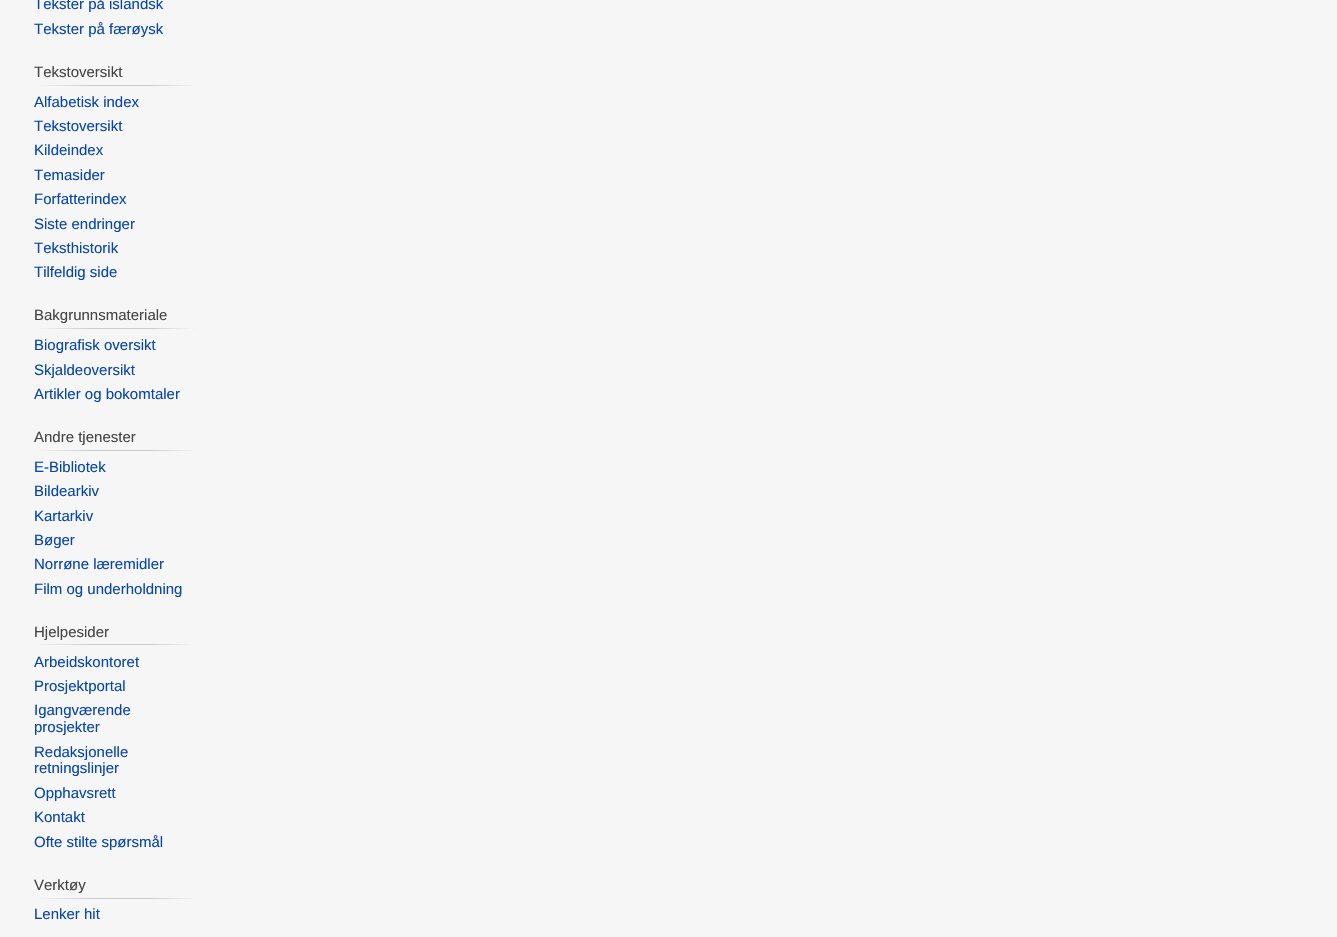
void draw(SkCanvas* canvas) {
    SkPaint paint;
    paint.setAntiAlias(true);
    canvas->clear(0xFFF6F6F6);
    SkFont font1(fontMgr->matchFamilyStyle("Liberation Sans", SkFontStyle::Normal()), 15);
    font1.setSubpixel(true);
    paint.setColor(0xFF0645AD);
    canvas->drawString("Tekster på islandsk", 34, 9, font1, paint);
    canvas->drawString("Tekster på færøysk", 34, 34, font1, paint);
    paint.setColor(0xFF444444);
    canvas->drawString("Tekstoversikt", 34, 77, font1, paint);
    {
        const SkColor colors[] = {0xFFF6F6F6, 0xFFC8CCD1, 0xFFC8CCD1, 0xFFF6F6F6};
        const float stops[] = {0, 0.35f, 0.7f, 1};
        const SkPoint ends[] = {{34, 86}, {198, 86}};
        paint.setShader(SkGradientShader::MakeLinear(ends, colors, stops, 4, SkTileMode::kClamp));
        paint.setAlpha(255);
    }
    canvas->drawRect(SkRect::MakeXYWH(34, 85, 164, 1), paint);
    paint.setShader(nullptr);
    paint.setColor(0xFF0645AD);
    canvas->drawString("Alfabetisk index", 34, 107, font1, paint);
    canvas->drawString("Tekstoversikt", 34, 131, font1, paint);
    canvas->drawString("Kildeindex", 34, 155, font1, paint);
    canvas->drawString("Temasider", 34, 180, font1, paint);
    canvas->drawString("Forfatterindex", 34, 204, font1, paint);
    canvas->drawString("Siste endringer", 34, 229, font1, paint);
    canvas->drawString("Teksthistorik", 34, 253, font1, paint);
    canvas->drawString("Tilfeldig side", 34, 277, font1, paint);
    paint.setColor(0xFF444444);
    canvas->drawString("Bakgrunnsmateriale", 34, 320, font1, paint);
    {
        const SkColor colors[] = {0xFFF6F6F6, 0xFFC8CCD1, 0xFFC8CCD1, 0xFFF6F6F6};
        const float stops[] = {0, 0.35f, 0.7f, 1};
        const SkPoint ends[] = {{34, 328}, {198, 328}};
        paint.setShader(SkGradientShader::MakeLinear(ends, colors, stops, 4, SkTileMode::kClamp));
        paint.setAlpha(255);
    }
    canvas->drawRect(SkRect::MakeXYWH(34, 328, 164, 1), paint);
    paint.setShader(nullptr);
    paint.setColor(0xFF0645AD);
    canvas->drawString("Biografisk oversikt", 34, 350, font1, paint);
    canvas->drawString("Skjaldeoversikt", 34, 375, font1, paint);
    canvas->drawString("Artikler og bokomtaler", 34, 399, font1, paint);
    paint.setColor(0xFF444444);
    canvas->drawString("Andre tjenester", 34, 442, font1, paint);
    {
        const SkColor colors[] = {0xFFF6F6F6, 0xFFC8CCD1, 0xFFC8CCD1, 0xFFF6F6F6};
        const float stops[] = {0, 0.35f, 0.7f, 1};
        const SkPoint ends[] = {{34, 451}, {198, 451}};
        paint.setShader(SkGradientShader::MakeLinear(ends, colors, stops, 4, SkTileMode::kClamp));
        paint.setAlpha(255);
    }
    canvas->drawRect(SkRect::MakeXYWH(34, 450, 164, 1), paint);
    paint.setShader(nullptr);
    paint.setColor(0xFF0645AD);
    canvas->drawString("E-Bibliotek", 34, 472, font1, paint);
    canvas->drawString("Bildearkiv", 34, 496, font1, paint);
    canvas->drawString("Kartarkiv", 34, 521, font1, paint);
    canvas->drawString("Bøger", 34, 545, font1, paint);
    canvas->drawString("Norrøne læremidler", 34, 569, font1, paint);
    canvas->drawString("Film og underholdning", 34, 594, font1, paint);
    paint.setColor(0xFF444444);
    canvas->drawString("Hjelpesider", 34, 637, font1, paint);
    {
        const SkColor colors[] = {0xFFF6F6F6, 0xFFC8CCD1, 0xFFC8CCD1, 0xFFF6F6F6};
        const float stops[] = {0, 0.35f, 0.7f, 1};
        const SkPoint ends[] = {{34, 644}, {198, 644}};
        paint.setShader(SkGradientShader::MakeLinear(ends, colors, stops, 4, SkTileMode::kClamp));
        paint.setAlpha(255);
    }
    canvas->drawRect(SkRect::MakeXYWH(34, 644, 164, 1), paint);
    paint.setShader(nullptr);
    paint.setColor(0xFF0645AD);
    canvas->drawString("Arbeidskontoret", 34, 667, font1, paint);
    canvas->drawString("Prosjektportal", 34, 691, font1, paint);
    canvas->drawString("Igangværende", 34, 715, font1, paint);
    canvas->drawString("prosjekter", 34, 732, font1, paint);
    canvas->drawString("Redaksjonelle", 34, 757, font1, paint);
    canvas->drawString("retningslinjer", 34, 773, font1, paint);
    canvas->drawString("Opphavsrett", 34, 798, font1, paint);
    canvas->drawString("Kontakt", 34, 822, font1, paint);
    canvas->drawString("Ofte stilte spørsmål", 34, 847, font1, paint);
    paint.setColor(0xFF444444);
    canvas->drawString("Verktøy", 34, 890, font1, paint);
    {
        const SkColor colors[] = {0xFFF6F6F6, 0xFFC8CCD1, 0xFFC8CCD1, 0xFFF6F6F6};
        const float stops[] = {0, 0.35f, 0.7f, 1};
        const SkPoint ends[] = {{34, 898}, {198, 898}};
        paint.setShader(SkGradientShader::MakeLinear(ends, colors, stops, 4, SkTileMode::kClamp));
        paint.setAlpha(255);
    }
    canvas->drawRect(SkRect::MakeXYWH(34, 898, 164, 1), paint);
    paint.setShader(nullptr);
    paint.setColor(0xFF0645AD);
    canvas->drawString("Lenker hit", 34, 919, font1, paint);
}
